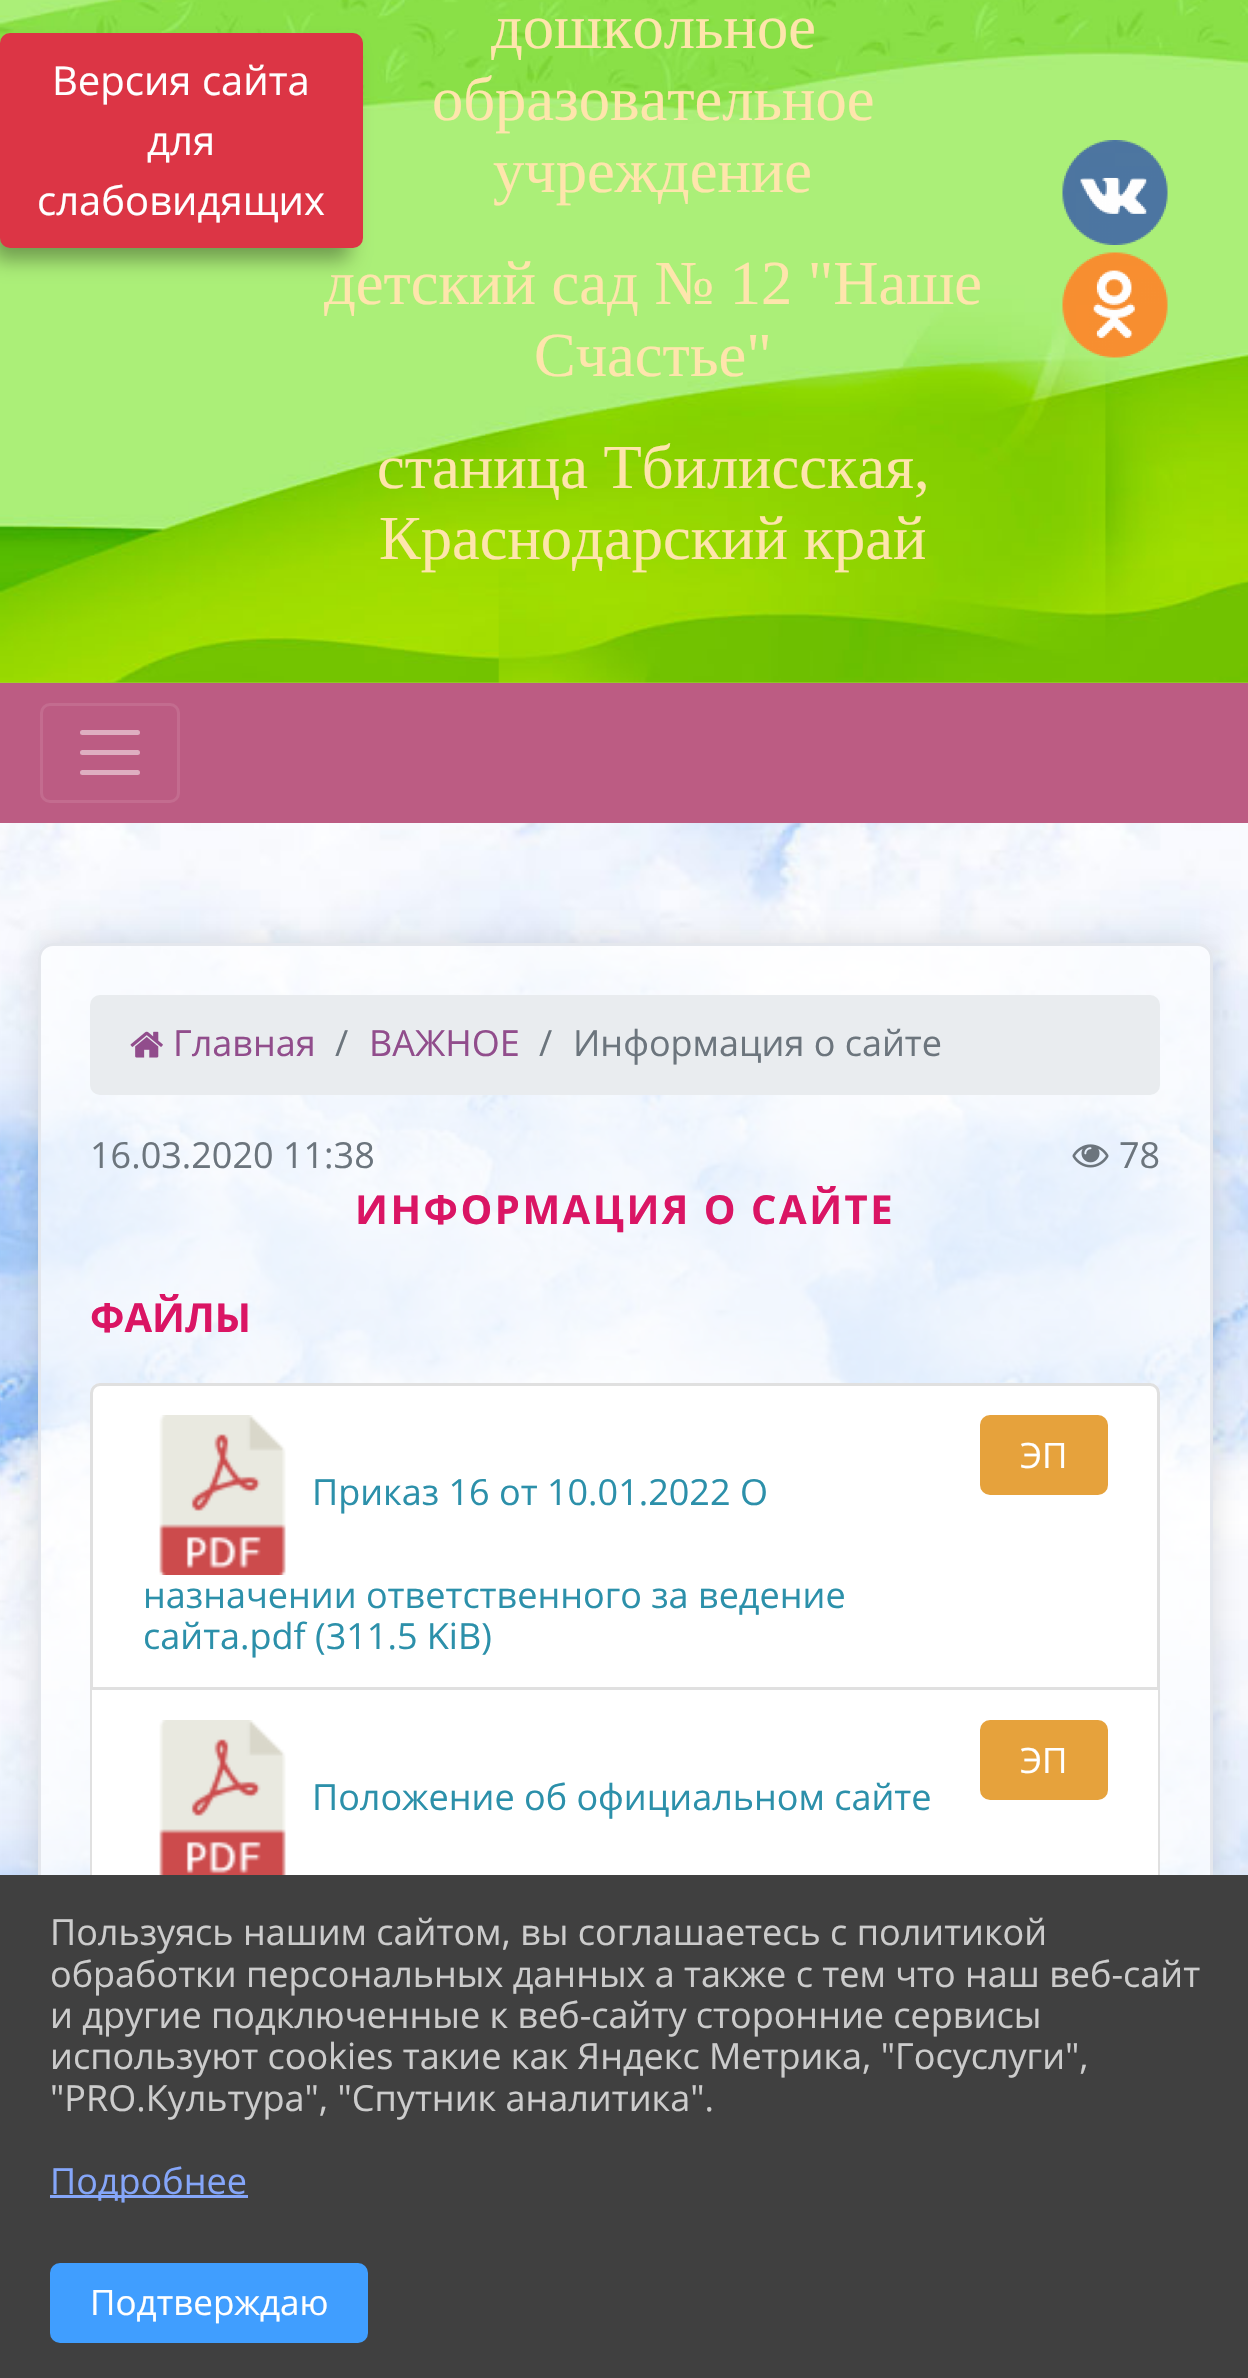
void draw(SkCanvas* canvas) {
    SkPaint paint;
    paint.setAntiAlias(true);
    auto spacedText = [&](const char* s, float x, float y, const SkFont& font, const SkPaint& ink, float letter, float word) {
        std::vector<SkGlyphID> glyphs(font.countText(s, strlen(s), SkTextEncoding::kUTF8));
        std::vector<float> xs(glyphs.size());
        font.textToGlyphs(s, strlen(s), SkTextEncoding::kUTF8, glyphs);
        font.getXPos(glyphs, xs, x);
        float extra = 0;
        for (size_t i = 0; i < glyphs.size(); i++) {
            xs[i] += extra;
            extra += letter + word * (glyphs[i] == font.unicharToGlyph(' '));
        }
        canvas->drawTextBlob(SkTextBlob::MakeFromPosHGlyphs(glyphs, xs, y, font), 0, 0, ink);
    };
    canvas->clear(0xFFFFFFFF);
    canvas->drawImageRect(SkImages::DeferredFromEncodedData(SkData::MakeFromFileName("img1.png")), SkRect::MakeXYWH(0, 823, 1248, 1052), SkSamplingOptions());
    paint.setColor(0xFFA7CB45);
    canvas->drawRect(SkRect::MakeXYWH(0, 682, 1248, 1), paint);
    canvas->drawImageRect(SkImages::DeferredFromEncodedData(SkData::MakeFromFileName("img2.png")), SkRect::MakeXYWH(0, 0, 1248, 683), SkSamplingOptions());
    SkFont font1(fontMgr->matchFamilyStyle("Liberation Serif", SkFontStyle::Normal()), 62.5f);
    font1.setSubpixel(true);
    paint.setColor(0xFFFEE5AC);
    canvas->drawString("дошкольное", 491, 48, font1, paint);
    canvas->drawString("образовательное", 432, 120, font1, paint);
    canvas->drawString("учреждение", 493, 192, font1, paint);
    canvas->drawString("детский сад № 12 \"Наше", 324, 304, font1, paint);
    canvas->drawString("Счастье\"", 534, 376, font1, paint);
    canvas->drawString("станица Тбилисская,", 377, 488, font1, paint);
    canvas->drawString("Краснодарский край", 379, 559, font1, paint);
    canvas->drawImageRect(SkImages::DeferredFromEncodedData(SkData::MakeFromFileName("img3.png")), SkRect::MakeXYWH(1062, 140, 106, 105), SkSamplingOptions());
    canvas->drawImageRect(SkImages::DeferredFromEncodedData(SkData::MakeFromFileName("img4.png")), SkRect::MakeXYWH(1062, 252, 106, 106), SkSamplingOptions());
    paint.setColor(0xFFBC5C83);
    canvas->drawRect(SkRect::MakeXYWH(0, 683, 1248, 140), paint);
    paint.setStyle(SkPaint::kStroke_Style);
    paint.setStrokeWidth(3);
    paint.setColor(0xFFC36C8F);
    canvas->drawRoundRect(SkRect::MakeXYWH(41.5f, 704.5f, 137, 97), 8.5f, 8.5f, paint);
    paint.setStrokeWidth(5);
    paint.setStrokeCap(SkPaint::kRound_Cap);
    paint.setColor(0xFFDEAEC1);
    canvas->drawPath(SkPathBuilder().moveTo(82.5f, 732.5f).lineTo(137.5f, 732.5f).moveTo(82.5f, 752.5f).lineTo(137.5f, 752.5f).moveTo(82.5f, 772.5f).lineTo(137.5f, 772.5f).detach(), paint);
    canvas->save();
    canvas->clipPath(SkPathBuilder(SkPathFillType::kEvenOdd).moveTo(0, 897).lineTo(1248, 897).lineTo(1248, 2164).lineTo(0, 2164).close().moveTo(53, 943).lineTo(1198, 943).cubicTo(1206.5f, 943, 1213, 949.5f, 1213, 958).lineTo(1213, 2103).cubicTo(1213, 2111.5f, 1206.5f, 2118, 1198, 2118).lineTo(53, 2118).cubicTo(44.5f, 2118, 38, 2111.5f, 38, 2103).lineTo(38, 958).cubicTo(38, 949.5f, 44.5f, 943, 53, 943).close().detach(), true);
    paint.setStyle(SkPaint::kFill_Style);
    paint.setColor(0x1F000000);
    paint.setMaskFilter(SkMaskFilter::MakeBlur(kNormal_SkBlurStyle, 15));
    canvas->drawRoundRect(SkRect::MakeXYWH(38, 943, 1175, 1175), 15, 15, paint);
    paint.setMaskFilter(nullptr);
    canvas->restore();
    paint.setColor(0xB5FFFFFF);
    canvas->drawRoundRect(SkRect::MakeXYWH(39.5f, 944.5f, 1172, 1172), 13.5f, 13.5f, paint);
    paint.setStyle(SkPaint::kStroke_Style);
    paint.setStrokeWidth(3);
    paint.setStrokeCap(SkPaint::kButt_Cap);
    paint.setColor(0xFFE4E7ED);
    canvas->drawRoundRect(SkRect::MakeXYWH(39.5f, 944.5f, 1172, 1172), 13.5f, 13.5f, paint);
    paint.setStyle(SkPaint::kFill_Style);
    paint.setColor(0xFFE9ECEF);
    canvas->drawRoundRect(SkRect::MakeXYWH(90, 995, 1070, 100), 10, 10, paint);
    canvas->drawImageRect(SkImages::DeferredFromEncodedData(SkData::MakeFromFileName("img5.png")), SkRect::MakeXYWH(130, 1031, 33, 27), SkSamplingOptions());
    SkFont font2(fontMgr->matchFamilyStyle("Open Sans", SkFontStyle::Normal()), 36);
    font2.setSubpixel(true);
    paint.setColor(0xFF914D8C);
    canvas->drawString("Главная", 173, 1056, font2, paint);
    paint.setColor(0xFF6C757D);
    canvas->drawString("/", 335, 1056, font2, paint);
    paint.setColor(0xFF914D8C);
    canvas->drawString("ВАЖНОЕ", 369, 1056, font2, paint);
    paint.setColor(0xFF6C757D);
    canvas->drawString("/", 539, 1056, font2, paint);
    canvas->drawString("Информация о сайте", 573, 1056, font2, paint);
    canvas->drawString("16.03.2020 11:38", 90, 1168, font2, paint);
    canvas->drawImageRect(SkImages::DeferredFromEncodedData(SkData::MakeFromFileName("img6.png")), SkRect::MakeXYWH(1072, 1144, 37, 24), SkSamplingOptions());
    canvas->drawString("78", 1119, 1168, font2, paint);
    SkFont font3(fontMgr->matchFamilyStyle("Open Sans", SkFontStyle::Bold()), 40);
    font3.setSubpixel(true);
    paint.setColor(0xFFDA1564);
    spacedText("ИНФОРМАЦИЯ О САЙТЕ", 355, 1224, font3, paint, 2.5f, 0);
    canvas->drawString("ФАЙЛЫ", 90, 1332, font3, paint);
    paint.setColor(0xFFFFFFFF);
    canvas->drawPath(SkPathBuilder().moveTo(100, 1383).lineTo(1150, 1383).cubicTo(1155.5f, 1383, 1160, 1387.5f, 1160, 1393).lineTo(1160, 1690).lineTo(90, 1690).lineTo(90, 1393).cubicTo(90, 1387.5f, 94.5f, 1383, 100, 1383).close().detach(), paint);
    paint.setStyle(SkPaint::kStroke_Style);
    paint.setColor(0x1F000000);
    canvas->drawPath(SkPathBuilder().moveTo(100, 1384.5f).lineTo(1150, 1384.5f).cubicTo(1154.5f, 1384.5f, 1158.5f, 1388.5f, 1158.5f, 1393).lineTo(1158.5f, 1688.5f).lineTo(91.5f, 1688.5f).lineTo(91.5f, 1393).cubicTo(91.5f, 1388.5f, 95.5f, 1384.5f, 100, 1384.5f).close().detach(), paint);
    paint.setStyle(SkPaint::kFill_Style);
    paint.setColor(0xFFE6A23C);
    canvas->drawRoundRect(SkRect::MakeXYWH(981.5f, 1416.5f, 125, 77), 8.5f, 8.5f, paint);
    paint.setStyle(SkPaint::kStroke_Style);
    canvas->drawRoundRect(SkRect::MakeXYWH(981.5f, 1416.5f, 125, 77), 8.5f, 8.5f, paint);
    SkFont font4(fontMgr->matchFamilyStyle("Open Sans", SkFontStyle::Normal()), 35);
    font4.setSubpixel(true);
    paint.setStyle(SkPaint::kFill_Style);
    paint.setColor(0xFFFFFFFF);
    canvas->drawString("ЭП", 1020, 1468, font4, paint);
    canvas->drawImageRect(SkImages::DeferredFromEncodedData(SkData::MakeFromFileName("img7.png")), SkRect::MakeXYWH(159, 1415, 127, 160), SkSamplingOptions());
    paint.setColor(0xFF2C90AA);
    canvas->drawString("Приказ 16 от 10.01.2022 О", 312, 1505, font2, paint);
    canvas->drawString("назначении ответственного за ведение", 143, 1608, font2, paint);
    canvas->drawString("сайта.pdf (311.5 KiB)", 143, 1649, font2, paint);
    paint.setColor(0xFFFFFFFF);
    canvas->drawRect(SkRect::MakeXYWH(90, 1690, 1070, 185), paint);
    paint.setColor(0x1F000000);
    canvas->drawPath(SkPathBuilder(SkPathFillType::kEvenOdd).moveTo(90, 1690).lineTo(1160, 1690).lineTo(1160, 1945).cubicTo(1160, 1951, 1156, 1955, 1150, 1955).lineTo(100, 1955).cubicTo(94, 1955, 90, 1951, 90, 1945).close().moveTo(92, 1690).lineTo(1158, 1690).lineTo(1158, 1945).cubicTo(1158, 1949, 1154, 1952, 1150, 1952).lineTo(100, 1952).cubicTo(96, 1952, 92, 1949, 92, 1945).close().detach(), paint);
    paint.setColor(0xFFE6A23C);
    canvas->drawRoundRect(SkRect::MakeXYWH(981.5f, 1721.5f, 125, 77), 8.5f, 8.5f, paint);
    paint.setStyle(SkPaint::kStroke_Style);
    canvas->drawRoundRect(SkRect::MakeXYWH(981.5f, 1721.5f, 125, 77), 8.5f, 8.5f, paint);
    paint.setStyle(SkPaint::kFill_Style);
    paint.setColor(0xFFFFFFFF);
    canvas->drawString("ЭП", 1020, 1773, font4, paint);
    canvas->drawImageRect(SkImages::DeferredFromEncodedData(SkData::MakeFromFileName("img8.png")), SkRect::MakeXYWH(159, 1720, 127, 155), SkSamplingOptions());
    paint.setColor(0xFF2C90AA);
    canvas->drawString("Положение об официальном сайте", 312, 1810, font2, paint);
    paint.setColor(0x59000000);
    paint.setMaskFilter(SkMaskFilter::MakeBlur(kNormal_SkBlurStyle, 10));
    canvas->drawRoundRect(SkRect::MakeXYWH(-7, 50, 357, 210), 8, 8, paint);
    paint.setMaskFilter(nullptr);
    paint.setColor(0xFFDC3545);
    canvas->drawRoundRect(SkRect::MakeXYWH(1.5f, 34.5f, 360, 212), 8.5f, 8.5f, paint);
    paint.setStyle(SkPaint::kStroke_Style);
    canvas->drawRoundRect(SkRect::MakeXYWH(1.5f, 34.5f, 360, 212), 8.5f, 8.5f, paint);
    SkFont font5(fontMgr->matchFamilyStyle("Open Sans", SkFontStyle::Normal()), 40);
    font5.setSubpixel(true);
    paint.setStyle(SkPaint::kFill_Style);
    paint.setColor(0xFFFFFFFF);
    canvas->drawString("Версия сайта", 52, 95, font5, paint);
    canvas->drawString("для", 147, 155, font5, paint);
    canvas->drawString("слабовидящих", 37, 215, font5, paint);
    paint.setColor(0xFF404040);
    canvas->drawRect(SkRect::MakeXYWH(0, 1875, 1248, 503), paint);
    paint.setColor(0xFFCCCCCC);
    canvas->drawString("Пользуясь нашим сайтом, вы соглашаетесь с политикой", 50, 1945, font2, paint);
    canvas->drawString("обработки персональных данных а также с тем что наш веб-сайт", 50, 1987, font2, paint);
    canvas->drawString("и другие подключенные к веб-сайту сторонние сервисы", 50, 2028, font2, paint);
    canvas->drawString("используют cookies такие как Яндекс Метрика, \"Госуслуги\",", 50, 2069, font2, paint);
    canvas->drawString("\"PRO.Культура\", \"Спутник аналитика\".", 50, 2111, font2, paint);
    paint.setColor(0xFF85A6F9);
    canvas->drawRect(SkRect::MakeXYWH(50, 2195, 198, 3), paint);
    canvas->drawString("Подробнее", 50, 2194, font2, paint);
    paint.setColor(0xFF409EFF);
    canvas->drawRoundRect(SkRect::MakeXYWH(51.5f, 2264.5f, 315, 77), 8.5f, 8.5f, paint);
    paint.setStyle(SkPaint::kStroke_Style);
    canvas->drawRoundRect(SkRect::MakeXYWH(51.5f, 2264.5f, 315, 77), 8.5f, 8.5f, paint);
    paint.setStyle(SkPaint::kFill_Style);
    paint.setColor(0xFFFFFFFF);
    canvas->drawString("Подтверждаю", 90, 2315, font4, paint);
}
